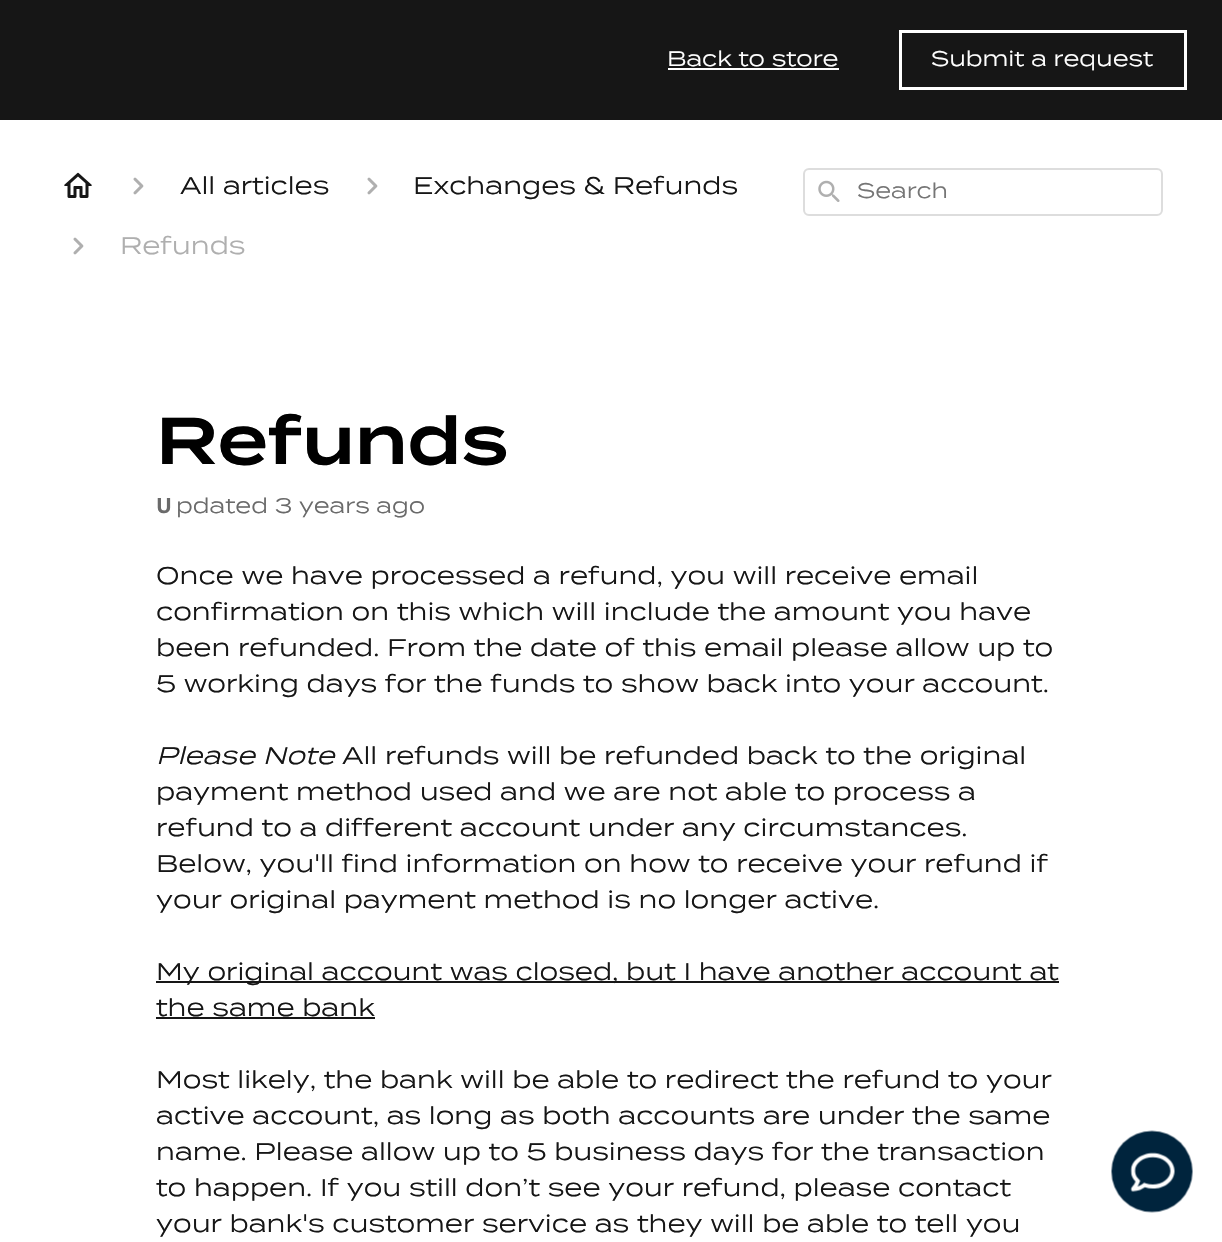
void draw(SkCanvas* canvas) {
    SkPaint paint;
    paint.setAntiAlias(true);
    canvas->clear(0xFFFFFFFF);
    paint.setColor(0xFF161616);
    canvas->drawRect(SkRect::MakeXYWH(0, 0, 1222, 120), paint);
    SkFont font1(fontMgr->matchFamilyStyle("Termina", SkFontStyle::Normal()), 21);
    font1.setSubpixel(true);
    paint.setColor(0xFFFFFFFF);
    canvas->drawString("Back to store", 667, 66, font1, paint);
    canvas->drawRect(SkRect::MakeXYWH(668, 68, 171, 2), paint);
    paint.setStyle(SkPaint::kStroke_Style);
    paint.setStrokeWidth(3);
    canvas->drawRect(SkRect::MakeXYWH(900.5f, 31.5f, 285, 57), paint);
    paint.setStyle(SkPaint::kFill_Style);
    canvas->drawString("Submit a request", 931, 66, font1, paint);
    canvas->drawImageRect(SkImages::DeferredFromEncodedData(SkData::MakeFromFileName("img1.png")), SkRect::MakeXYWH(64, 172, 28, 26), SkSamplingOptions());
    canvas->drawImageRect(SkImages::DeferredFromEncodedData(SkData::MakeFromFileName("img2.png")), SkRect::MakeXYWH(133, 177, 11, 18), SkSamplingOptions());
    SkFont font2(fontMgr->matchFamilyStyle("Termina", SkFontStyle::Normal()), 24);
    font2.setSubpixel(true);
    paint.setColor(0xFF161616);
    canvas->drawString("All articles", 180, 194, font2, paint);
    canvas->drawImageRect(SkImages::DeferredFromEncodedData(SkData::MakeFromFileName("img2.png")), SkRect::MakeXYWH(367, 177, 11, 18), SkSamplingOptions());
    canvas->drawString("Exchanges & Refunds", 413, 194, font2, paint);
    canvas->drawImageRect(SkImages::DeferredFromEncodedData(SkData::MakeFromFileName("img2.png")), SkRect::MakeXYWH(73, 237, 11, 18), SkSamplingOptions());
    paint.setColor(0xFFAFAFAF);
    canvas->drawString("Refunds", 120, 254, font2, paint);
    paint.setStyle(SkPaint::kStroke_Style);
    paint.setStrokeWidth(2);
    paint.setColor(0xFFDDDDDD);
    canvas->drawRoundRect(SkRect::MakeXYWH(804, 169, 358, 46), 5, 5, paint);
    canvas->drawImageRect(SkImages::DeferredFromEncodedData(SkData::MakeFromFileName("img3.png")), SkRect::MakeXYWH(818, 180, 22, 22), SkSamplingOptions());
    paint.setStyle(SkPaint::kFill_Style);
    paint.setColor(0xFF757575);
    canvas->drawString("Search", 857, 198, font1, paint);
    SkFont font3(fontMgr->matchFamilyStyle("Termina", SkFontStyle(600, SkFontStyle::kNormal_Width, SkFontStyle::kUpright_Slant)), 66);
    font3.setSubpixel(true);
    paint.setColor(0xFF000000);
    canvas->drawString("Refunds", 156, 464, font3, paint);
    SkFont font4(fontMgr->matchFamilyStyle("Noto Sans", SkFontStyle::Bold()), 21);
    font4.setSubpixel(true);
    paint.setColor(0xFF6A6A6A);
    canvas->drawString("U", 156, 513, font4, paint);
    canvas->drawString("pdated 3 years ago", 176, 513, font1, paint);
    paint.setColor(0xFF161616);
    canvas->drawString("Once we have processed a refund, you will receive email", 156, 584, font2, paint);
    canvas->drawString("confirmation on this which will include the amount you have", 156, 620, font2, paint);
    canvas->drawString("been refunded. From the date of this email please allow up to", 156, 656, font2, paint);
    canvas->drawString("5 working days for the funds to show back into your account.", 156, 692, font2, paint);
    SkFont font5(fontMgr->matchFamilyStyle("Termina", SkFontStyle::Italic()), 24);
    font5.setSubpixel(true);
    canvas->drawString("Please Note", 156, 764, font5, paint);
    canvas->drawString("All refunds will be refunded back to the original", 342, 764, font2, paint);
    canvas->drawString("payment method used and we are not able to process a", 156, 800, font2, paint);
    canvas->drawString("refund to a different account under any circumstances.", 156, 836, font2, paint);
    canvas->drawString("Below, you'll find information on how to receive your refund if", 156, 872, font2, paint);
    canvas->drawString("your original payment method is no longer active.", 156, 908, font2, paint);
    canvas->drawRect(SkRect::MakeXYWH(156, 981, 903, 2), paint);
    canvas->drawString("My original account was closed, but I have another account at", 156, 980, font2, paint);
    canvas->drawString("the same bank", 156, 1016, font2, paint);
    canvas->drawRect(SkRect::MakeXYWH(156, 1017, 219, 2), paint);
    canvas->drawString("Most likely, the bank will be able to redirect the refund to your", 156, 1088, font2, paint);
    canvas->drawString("active account, as long as both accounts are under the same", 156, 1124, font2, paint);
    canvas->drawString("name. Please allow up to 5 business days for the transaction", 156, 1160, font2, paint);
    canvas->drawString("to happen. If you still don’t see your refund, please contact", 156, 1196, font2, paint);
    canvas->drawString("your bank's customer service as they will be able to tell you", 156, 1232, font2, paint);
    canvas->drawImageRect(SkImages::DeferredFromEncodedData(SkData::MakeFromFileName("img4.png")), SkRect::MakeXYWH(1111, 1130, 82, 83), SkSamplingOptions());
}
